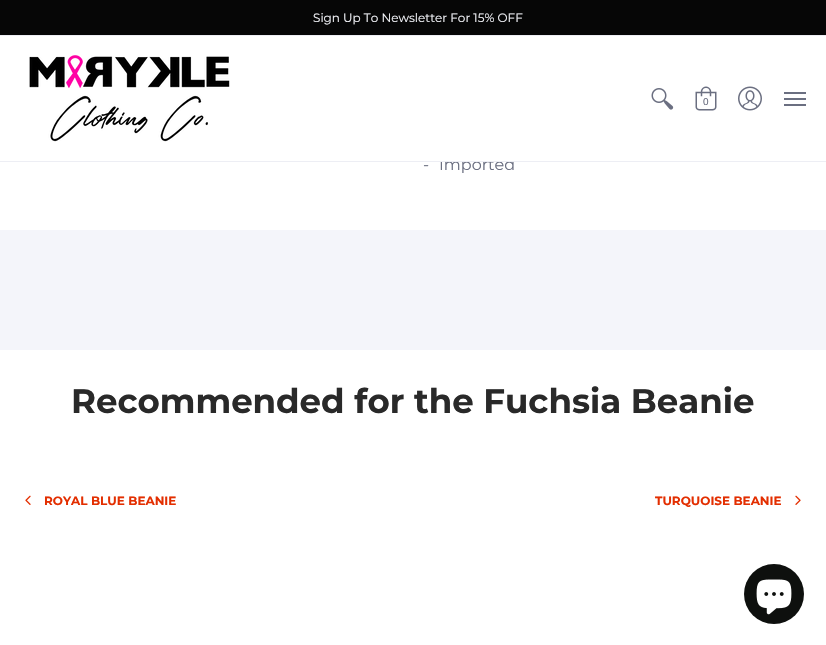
void draw(SkCanvas* canvas) {
    SkPaint paint;
    paint.setAntiAlias(true);
    canvas->clear(0xFFFFFFFF);
    SkFont font1(fontMgr->matchFamilyStyle("Montserrat", SkFontStyle::Normal()), 16);
    font1.setSubpixel(true);
    paint.setColor(0xFF6B6F81);
    canvas->drawString("Imported", 439, 170, font1, paint);
    paint.setColor(0xFFFFFFFF);
    canvas->drawRect(SkRect::MakeXYWH(440, 158, 74, 3), paint);
    paint.setColor(0xFF060606);
    canvas->drawRect(SkRect::MakeXYWH(0, 0, 826, 35), paint);
    paint.setColor(0xFFEDEEF4);
    canvas->drawRect(SkRect::MakeXYWH(0, 35, 826, 1), paint);
    SkFont font2(fontMgr->matchFamilyStyle("Montserrat", SkFontStyle::Normal()), 12);
    font2.setSubpixel(true);
    paint.setColor(0xFFF4F5FA);
    canvas->drawString("Sign Up To Newsletter For 15% OFF", 313, 22, font2, paint);
    paint.setColor(0xFFEDEEF4);
    canvas->drawRect(SkRect::MakeXYWH(0, 161, 826, 1), paint);
    canvas->drawImageRect(SkImages::DeferredFromEncodedData(SkData::MakeFromFileName("img1.png")), SkRect::MakeXYWH(29, 55, 201, 87), SkSamplingOptions());
    canvas->drawImageRect(SkImages::DeferredFromEncodedData(SkData::MakeFromFileName("img2.png")), SkRect::MakeXYWH(651, 88, 23, 22), SkSamplingOptions());
    canvas->drawImageRect(SkImages::DeferredFromEncodedData(SkData::MakeFromFileName("img3.png")), SkRect::MakeXYWH(695, 86, 22, 25), SkSamplingOptions());
    SkFont font3(fontMgr->matchFamilyStyle("Liberation Sans", SkFontStyle::Normal()), 10);
    font3.setSubpixel(true);
    paint.setColor(0xFF6B6F81);
    canvas->drawString("0", 703, 105, font3, paint);
    canvas->drawImageRect(SkImages::DeferredFromEncodedData(SkData::MakeFromFileName("img4.png")), SkRect::MakeXYWH(738, 86, 24, 25), SkSamplingOptions());
    canvas->drawRect(SkRect::MakeXYWH(784, 92, 22, 2), paint);
    canvas->drawRect(SkRect::MakeXYWH(784, 104, 22, 2), paint);
    canvas->drawRect(SkRect::MakeXYWH(784, 98, 22, 2), paint);
    canvas->drawString("-", 423, 170, font1, paint);
    paint.setColor(0xFFF4F5FA);
    canvas->drawRect(SkRect::MakeXYWH(0, 230, 826, 120), paint);
    SkFont font4(fontMgr->matchFamilyStyle("Montserrat", SkFontStyle::Bold()), 34);
    font4.setSubpixel(true);
    paint.setColor(0xFF292929);
    canvas->drawString("Recommended for the Fuchsia Beanie", 71, 413, font4, paint);
    canvas->drawImageRect(SkImages::DeferredFromEncodedData(SkData::MakeFromFileName("img5.png")), SkRect::MakeXYWH(25, 495, 6, 10), SkSamplingOptions());
    SkFont font5(fontMgr->matchFamilyStyle("Montserrat", SkFontStyle::Bold()), 12);
    font5.setSubpixel(true);
    paint.setColor(0xFFE32E00);
    canvas->drawString("ROYAL BLUE BEANIE", 44, 505, font5, paint);
    canvas->drawString("TURQUOISE BEANIE", 655, 505, font5, paint);
    canvas->drawImageRect(SkImages::DeferredFromEncodedData(SkData::MakeFromFileName("img6.png")), SkRect::MakeXYWH(795, 495, 6, 10), SkSamplingOptions());
    paint.setColor(0xFF0E100E);
    canvas->drawCircle(774, 594, 30, paint);
    canvas->drawImageRect(SkImages::DeferredFromEncodedData(SkData::MakeFromFileName("img7.png")), SkRect::MakeXYWH(756, 579, 36, 36), SkSamplingOptions());
}
